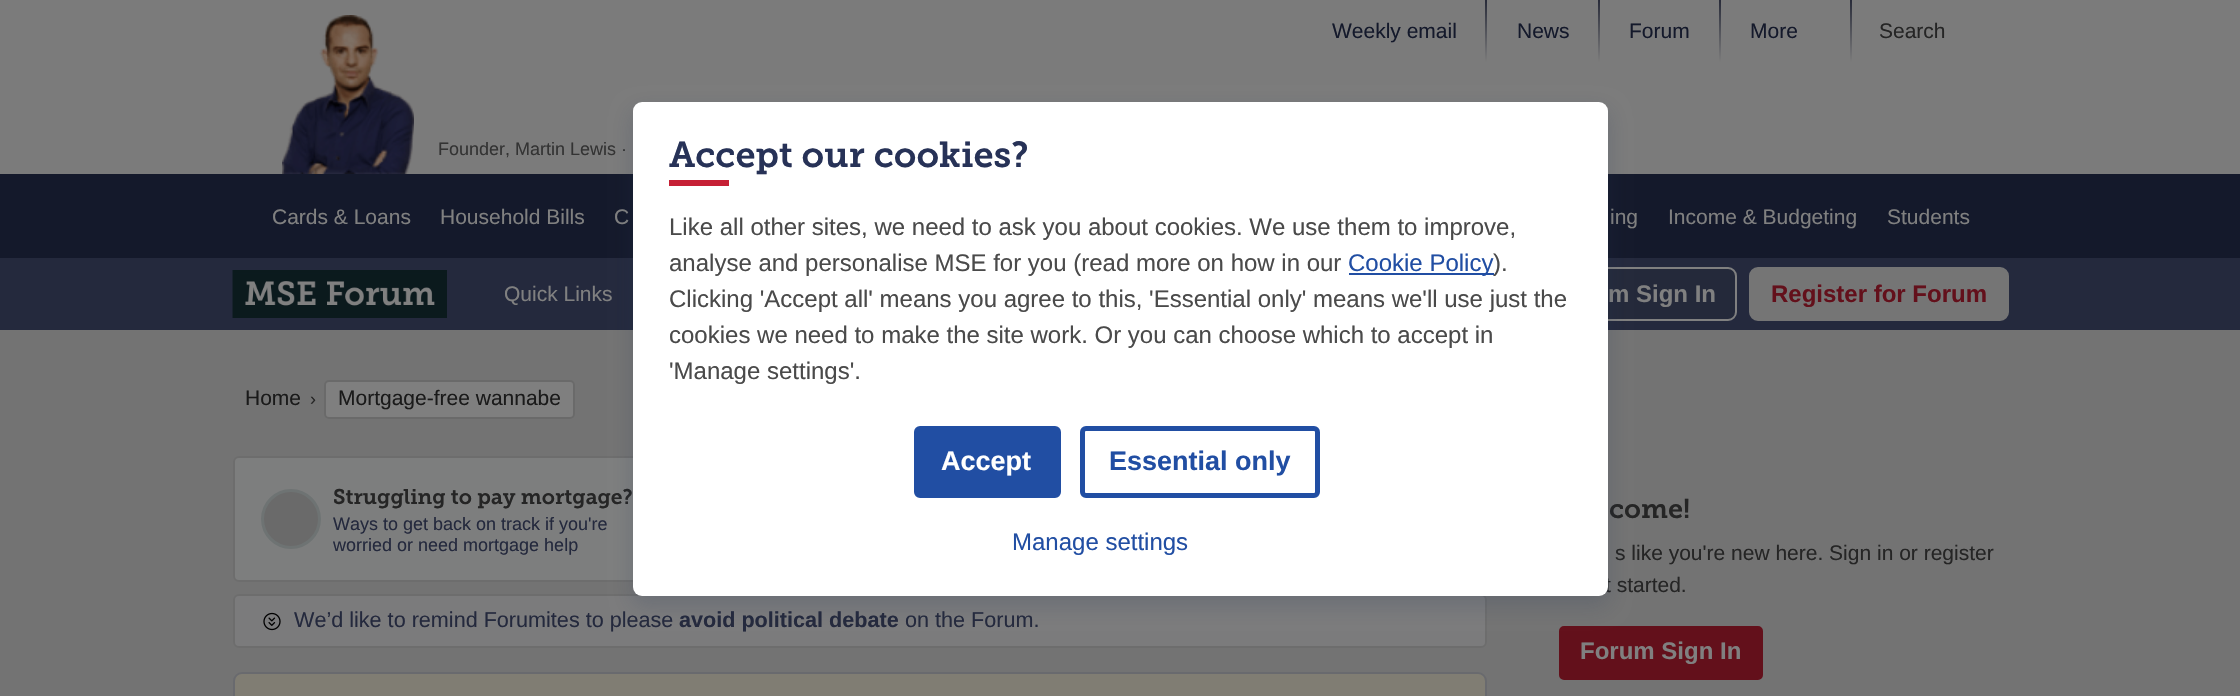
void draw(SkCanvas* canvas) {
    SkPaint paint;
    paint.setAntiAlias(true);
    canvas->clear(0xFF737373);
    paint.setColor(0xFF7B7B7B);
    canvas->drawRect(SkRect::MakeXYWH(0, 0, 2240, 174), paint);
    SkFont font1(fontMgr->matchFamilyStyle("Liberation Sans", SkFontStyle::Normal()), 21);
    font1.setSubpixel(true);
    paint.setColor(0xFF14192B);
    canvas->drawString("Weekly email", 1332, 38, font1, paint);
    {
        const SkColor colors[] = {0xFF282B39, 0xFF7B7B7B};
        const float stops[] = {0, 1};
        const SkPoint ends[] = {{1486, 0}, {1486, 62}};
        paint.setShader(SkGradientShader::MakeLinear(ends, colors, stops, 2, SkTileMode::kClamp));
        paint.setAlpha(255);
    }
    canvas->drawRect(SkRect::MakeXYWH(1485, 0, 2, 62), paint);
    paint.setShader(nullptr);
    paint.setColor(0xFF14192B);
    canvas->drawString("News", 1517, 38, font1, paint);
    {
        const SkColor colors[] = {0xFF282B39, 0xFF7B7B7B};
        const float stops[] = {0, 1};
        const SkPoint ends[] = {{1598, 0}, {1598, 62}};
        paint.setShader(SkGradientShader::MakeLinear(ends, colors, stops, 2, SkTileMode::kClamp));
        paint.setAlpha(255);
    }
    canvas->drawRect(SkRect::MakeXYWH(1598, 0, 2, 62), paint);
    paint.setShader(nullptr);
    paint.setColor(0xFF14192B);
    canvas->drawString("Forum", 1629, 38, font1, paint);
    {
        const SkColor colors[] = {0xFF282B39, 0xFF7B7B7B};
        const float stops[] = {0, 1};
        const SkPoint ends[] = {{1720, 0}, {1720, 62}};
        paint.setShader(SkGradientShader::MakeLinear(ends, colors, stops, 2, SkTileMode::kClamp));
        paint.setAlpha(255);
    }
    canvas->drawRect(SkRect::MakeXYWH(1719, 0, 2, 62), paint);
    paint.setShader(nullptr);
    paint.setColor(0xFF14192B);
    canvas->drawString("More", 1750, 38, font1, paint);
    {
        const SkColor colors[] = {0xFF282B39, 0xFF7B7B7B};
        const float stops[] = {0, 1};
        const SkPoint ends[] = {{1850, 0}, {1850, 62}};
        paint.setShader(SkGradientShader::MakeLinear(ends, colors, stops, 2, SkTileMode::kClamp));
        paint.setAlpha(255);
    }
    canvas->drawRect(SkRect::MakeXYWH(1850, 0, 2, 62), paint);
    paint.setShader(nullptr);
    paint.setColor(0xFF252525);
    canvas->drawString("Search", 1879, 38, font1, paint);
    canvas->drawImageRect(SkImages::DeferredFromEncodedData(SkData::MakeFromFileName("img1.png")), SkRect::MakeXYWH(282, 15, 132, 159), SkSamplingOptions());
    SkFont font2(fontMgr->matchFamilyStyle("Liberation Sans", SkFontStyle::Normal()), 18);
    font2.setSubpixel(true);
    paint.setColor(0xFF333333);
    canvas->drawString("Founder, Martin Lewis ·", 438, 155, font2, paint);
    paint.setColor(0xFF14192B);
    canvas->drawRect(SkRect::MakeXYWH(0, 174, 2240, 84), paint);
    paint.setColor(0xFF808080);
    canvas->drawString("Cards & Loans", 272, 224, font1, paint);
    canvas->drawString("Household Bills", 440, 224, font1, paint);
    canvas->drawString("C", 614, 224, font1, paint);
    canvas->drawString("ing", 1610, 224, font1, paint);
    canvas->drawString("Income & Budgeting", 1668, 224, font1, paint);
    canvas->drawString("Students", 1887, 224, font1, paint);
    paint.setColor(0xFF24293D);
    canvas->drawRect(SkRect::MakeXYWH(0, 258, 2240, 72), paint);
    canvas->drawImageRect(SkImages::DeferredFromEncodedData(SkData::MakeFromFileName("img2.png")), SkRect::MakeXYWH(232, 270, 215, 48), SkSamplingOptions());
    paint.setColor(0xFF808080);
    canvas->drawString("Quick Links", 504, 301, font1, paint);
    paint.setColor(0xFF24293A);
    canvas->drawRoundRect(SkRect::MakeXYWH(1534, 268, 202, 52), 8, 8, paint);
    paint.setStyle(SkPaint::kStroke_Style);
    paint.setStrokeWidth(2);
    paint.setColor(0xFF808080);
    canvas->drawRoundRect(SkRect::MakeXYWH(1534, 268, 202, 52), 8, 8, paint);
    SkFont font3(fontMgr->matchFamilyStyle("Liberation Sans", SkFontStyle::Bold()), 24);
    font3.setSubpixel(true);
    paint.setStyle(SkPaint::kFill_Style);
    canvas->drawString("m Sign In", 1608, 302, font3, paint);
    paint.setColor(0xFF757575);
    canvas->drawRoundRect(SkRect::MakeXYWH(1750, 268, 258, 52), 8, 8, paint);
    paint.setStyle(SkPaint::kStroke_Style);
    canvas->drawRoundRect(SkRect::MakeXYWH(1750, 268, 258, 52), 8, 8, paint);
    paint.setStyle(SkPaint::kFill_Style);
    paint.setColor(0xFF63101B);
    canvas->drawString("Register for Forum", 1771, 302, font3, paint);
    paint.setColor(0xFF1A1A1A);
    canvas->drawString("Home", 245, 405, font1, paint);
    paint.setColor(0xFF252525);
    canvas->drawString("›", 310, 405, font2, paint);
    paint.setColor(0xFF7F7F7F);
    canvas->drawRoundRect(SkRect::MakeXYWH(325, 381, 249, 37), 4, 4, paint);
    paint.setStyle(SkPaint::kStroke_Style);
    paint.setColor(0xFF6A6A6A);
    canvas->drawRoundRect(SkRect::MakeXYWH(325, 381, 249, 37), 4, 4, paint);
    paint.setStyle(SkPaint::kFill_Style);
    paint.setColor(0xFF1A1A1A);
    canvas->drawString("Mortgage-free wannabe", 338, 405, font1, paint);
    paint.setColor(0xFF7D7E7E);
    canvas->drawRoundRect(SkRect::MakeXYWH(234, 457, 1252, 124), 5, 5, paint);
    paint.setStyle(SkPaint::kStroke_Style);
    paint.setColor(0xFF6D6D6D);
    canvas->drawRoundRect(SkRect::MakeXYWH(234, 457, 1252, 124), 5, 5, paint);
    paint.setStyle(SkPaint::kFill_Style);
    paint.setColor(0xFF6A6A6A);
    canvas->drawCircle(291, 519, 28.5f, paint);
    paint.setStyle(SkPaint::kStroke_Style);
    paint.setStrokeWidth(3);
    paint.setColor(0xFF6E7373);
    canvas->drawCircle(291, 519, 28.5f, paint);
    SkFont font4(fontMgr->matchFamilyStyle("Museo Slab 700", SkFontStyle(600, SkFontStyle::kNormal_Width, SkFontStyle::kUpright_Slant)), 21);
    font4.setSubpixel(true);
    paint.setStyle(SkPaint::kFill_Style);
    paint.setColor(0xFF252525);
    canvas->drawString("Struggling to pay mortgage?", 333, 504, font4, paint);
    paint.setColor(0xFF24293D);
    canvas->drawString("Ways to get back on track if you're", 333, 530, font2, paint);
    canvas->drawString("worried or need mortgage help", 333, 551, font2, paint);
    paint.setColor(0xFF7B7B7C);
    canvas->drawRoundRect(SkRect::MakeXYWH(234, 595, 1252, 52), 5, 5, paint);
    paint.setStyle(SkPaint::kStroke_Style);
    paint.setStrokeWidth(2);
    paint.setColor(0xFF6D6D6D);
    canvas->drawRoundRect(SkRect::MakeXYWH(234, 595, 1252, 52), 5, 5, paint);
    canvas->drawImageRect(SkImages::DeferredFromEncodedData(SkData::MakeFromFileName("img3.png")), SkRect::MakeXYWH(263, 612, 18, 19), SkSamplingOptions());
    SkFont font5(fontMgr->matchFamilyStyle("Liberation Sans", SkFontStyle::Normal()), 21.6f);
    font5.setSubpixel(true);
    paint.setStyle(SkPaint::kFill_Style);
    paint.setColor(0xFF24293D);
    canvas->drawString("We’d like to remind Forumites to please", 294, 627, font5, paint);
    SkFont font6(fontMgr->matchFamilyStyle("Liberation Sans", SkFontStyle::Bold()), 21.6f);
    font6.setSubpixel(true);
    canvas->drawString("avoid political debate", 679, 627, font6, paint);
    canvas->drawString("on the Forum.", 905, 627, font5, paint);
    paint.setColor(0xFF807D73);
    canvas->drawRoundRect(SkRect::MakeXYWH(234, 673, 1252, 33), 8, 8, paint);
    paint.setStyle(SkPaint::kStroke_Style);
    paint.setColor(0xFF696A6E);
    canvas->drawRoundRect(SkRect::MakeXYWH(234, 673, 1252, 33), 8, 8, paint);
    SkFont font7(fontMgr->matchFamilyStyle("Museo Slab 700", SkFontStyle(600, SkFontStyle::kNormal_Width, SkFontStyle::kUpright_Slant)), 27);
    font7.setSubpixel(true);
    paint.setStyle(SkPaint::kFill_Style);
    paint.setColor(0xFF252525);
    canvas->drawString("come!", 1609, 518, font7, paint);
    canvas->drawString("s like you're new here. Sign in or register", 1615, 560, font1, paint);
    canvas->drawString("t started.", 1605, 592, font1, paint);
    paint.setColor(0xFF63101B);
    canvas->drawRoundRect(SkRect::MakeXYWH(1560, 627, 202, 52), 4, 4, paint);
    paint.setStyle(SkPaint::kStroke_Style);
    canvas->drawRoundRect(SkRect::MakeXYWH(1560, 627, 202, 52), 4, 4, paint);
    paint.setStyle(SkPaint::kFill_Style);
    paint.setColor(0xFF808080);
    canvas->drawString("Forum Sign In", 1580, 659, font3, paint);
    paint.setColor(0x3321395C);
    paint.setMaskFilter(SkMaskFilter::MakeBlur(kNormal_SkBlurStyle, 10.5f));
    canvas->drawRoundRect(SkRect::MakeXYWH(633, 111, 975, 494), 9, 9, paint);
    paint.setMaskFilter(nullptr);
    paint.setColor(0xFFFFFFFF);
    canvas->drawRoundRect(SkRect::MakeXYWH(633, 102, 975, 494), 9, 9, paint);
    SkFont font8(fontMgr->matchFamilyStyle("Museo Slab", SkFontStyle::Normal()), 36);
    font8.setSubpixel(true);
    paint.setColor(0xFF273257);
    canvas->drawString("Accept our cookies?", 669, 167, font8, paint);
    paint.setColor(0xFFC62035);
    canvas->drawRect(SkRect::MakeXYWH(669, 180, 60, 6), paint);
    SkFont font9(fontMgr->matchFamilyStyle("Liberation Sans", SkFontStyle::Normal()), 24);
    font9.setSubpixel(true);
    paint.setColor(0xFF4A4A4A);
    canvas->drawString("Like all other sites, we need to ask you about cookies. We use them to improve,", 669, 235, font9, paint);
    canvas->drawString("analyse and personalise MSE for you (read more on how in our", 669, 271, font9, paint);
    paint.setColor(0xFF214EA3);
    canvas->drawRect(SkRect::MakeXYWH(1349, 273, 145, 2), paint);
    canvas->drawString("Cookie Policy", 1348, 271, font9, paint);
    paint.setColor(0xFF4A4A4A);
    canvas->drawString(").", 1493, 271, font9, paint);
    canvas->drawString("Clicking 'Accept all' means you agree to this, 'Essential only' means we'll use just the", 669, 307, font9, paint);
    canvas->drawString("cookies we need to make the site work. Or you can choose which to accept in", 669, 343, font9, paint);
    canvas->drawString("'Manage settings'.", 669, 379, font9, paint);
    paint.setColor(0xFF214EA3);
    canvas->drawRoundRect(SkRect::MakeXYWH(916.5f, 428.5f, 142, 67), 3.5f, 3.5f, paint);
    paint.setStyle(SkPaint::kStroke_Style);
    paint.setStrokeWidth(5);
    canvas->drawRoundRect(SkRect::MakeXYWH(916.5f, 428.5f, 142, 67), 3.5f, 3.5f, paint);
    SkFont font10(fontMgr->matchFamilyStyle("Liberation Sans", SkFontStyle::Bold()), 27);
    font10.setSubpixel(true);
    paint.setStyle(SkPaint::kFill_Style);
    paint.setColor(0xFFFFFFFF);
    canvas->drawString("Accept", 941, 470, font10, paint);
    paint.setStyle(SkPaint::kStroke_Style);
    paint.setColor(0xFF214EA3);
    canvas->drawRoundRect(SkRect::MakeXYWH(1082.5f, 428.5f, 235, 67), 3.5f, 3.5f, paint);
    paint.setStyle(SkPaint::kFill_Style);
    canvas->drawString("Essential only", 1109, 470, font10, paint);
    canvas->drawString("Manage settings", 1012, 550, font9, paint);
}
